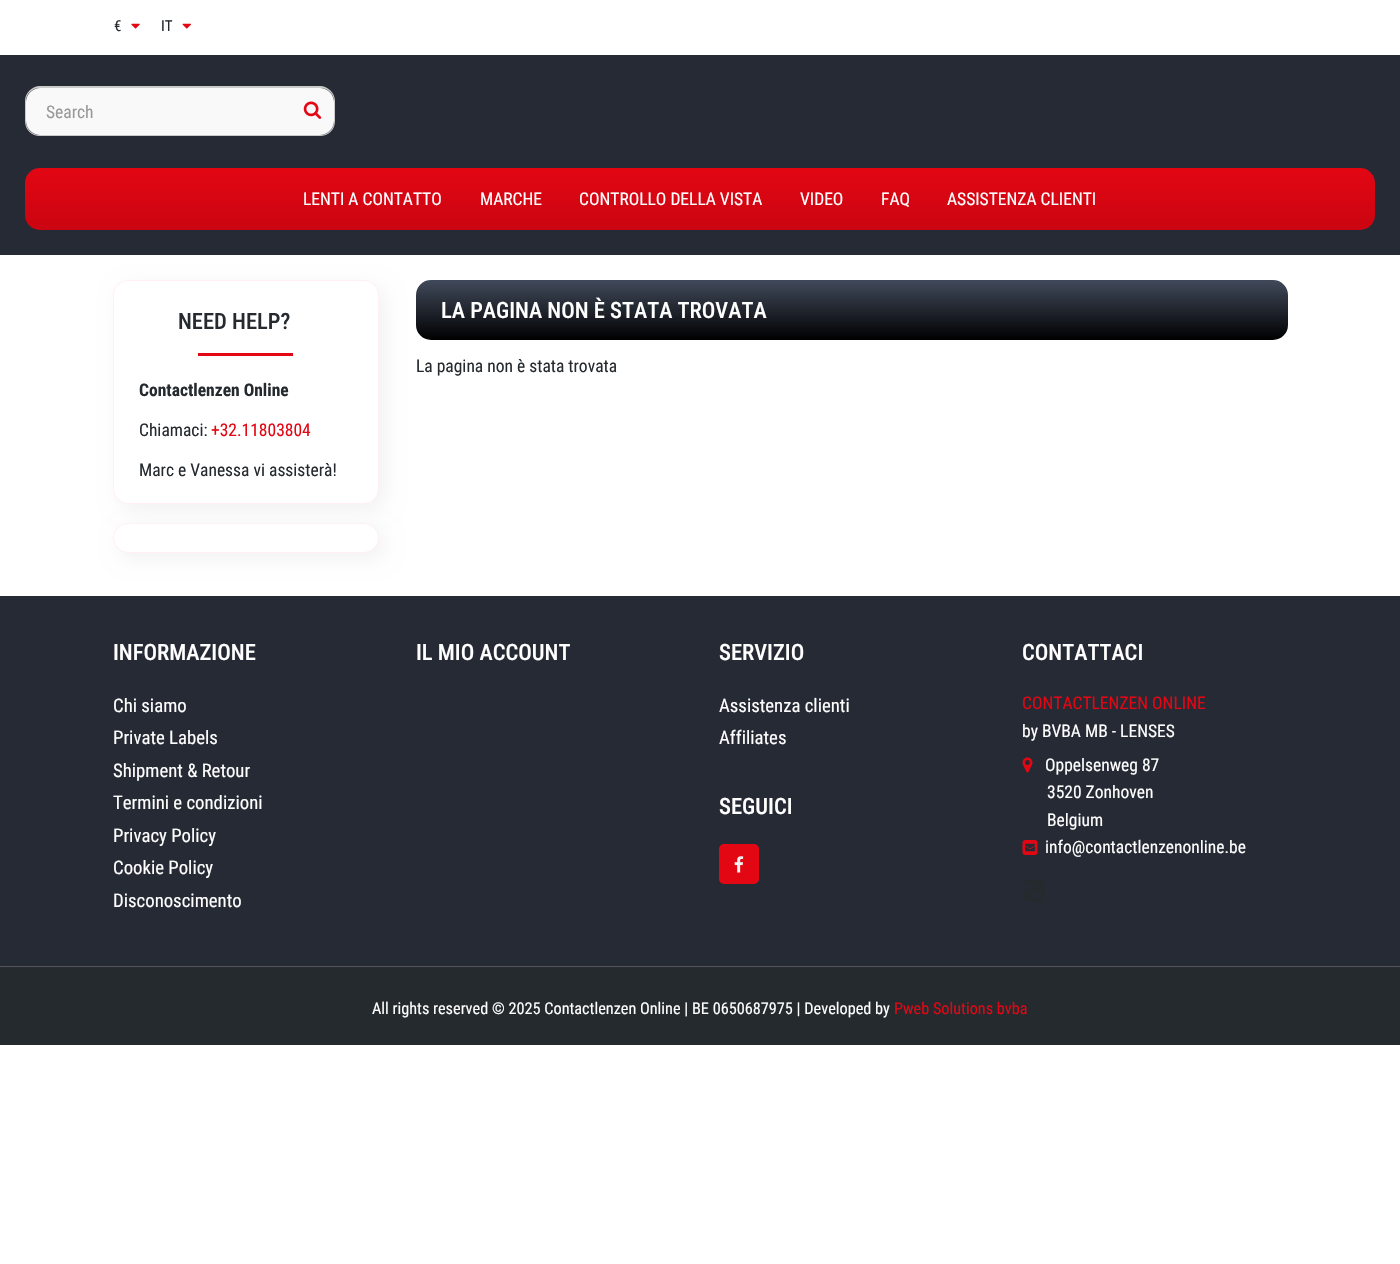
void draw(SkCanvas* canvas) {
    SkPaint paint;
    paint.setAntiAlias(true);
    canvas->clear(0xFFFFFFFF);
    paint.setColor(0xFF252A34);
    canvas->drawRect(SkRect::MakeXYWH(0, 55, 1400, 200), paint);
    SkFont font1(fontMgr->matchFamilyStyle("Roboto Condensed", SkFontStyle::Normal()), 15);
    font1.setSubpixel(true);
    paint.setColor(0xFF252A2F);
    canvas->drawString("€", 114, 31, font1, paint);
    canvas->drawImageRect(SkImages::DeferredFromEncodedData(SkData::MakeFromFileName("img1.png")), SkRect::MakeXYWH(131, 23, 9, 6), SkSamplingOptions());
    canvas->drawString("IT", 161, 31, font1, paint);
    canvas->drawImageRect(SkImages::DeferredFromEncodedData(SkData::MakeFromFileName("img2.png")), SkRect::MakeXYWH(182, 23, 9, 6), SkSamplingOptions());
    paint.setColor(0xFFF9F9F9);
    canvas->drawPath(SkPathBuilder().moveTo(40, 88).lineTo(293, 88).lineTo(293, 135).lineTo(40, 135).cubicTo(32.5f, 135, 26, 128.5f, 26, 121).lineTo(26, 102).cubicTo(26, 94.5f, 32.5f, 88, 40, 88).close().detach(), paint);
    paint.setColor(0xFFCBCBCB);
    canvas->drawPath(SkPathBuilder(SkPathFillType::kEvenOdd).moveTo(40, 86).lineTo(292, 86).lineTo(292, 136).lineTo(40, 136).cubicTo(32, 136, 25, 130, 25, 121).lineTo(25, 101).cubicTo(25, 93, 32, 86, 40, 86).close().moveTo(40, 88).lineTo(292, 88).lineTo(292, 135).lineTo(40, 135).cubicTo(32, 135, 26, 129, 26, 121).lineTo(26, 101).cubicTo(26, 94, 32, 88, 40, 88).close().detach(), paint);
    SkFont font2(fontMgr->matchFamilyStyle("Roboto Condensed", SkFontStyle::Normal()), 17.5f);
    font2.setSubpixel(true);
    paint.setColor(0xFF999999);
    canvas->drawString("Search", 46, 118, font2, paint);
    paint.setColor(0xFFF9F9F9);
    canvas->drawPath(SkPathBuilder().moveTo(291, 88).lineTo(320, 88).cubicTo(327.5f, 88, 334, 94.5f, 334, 102).lineTo(334, 121).cubicTo(334, 128.5f, 327.5f, 135, 320, 135).lineTo(291, 135).close().detach(), paint);
    paint.setColor(0xFFCBCBCB);
    canvas->drawPath(SkPathBuilder(SkPathFillType::kEvenOdd).moveTo(291, 86).lineTo(320, 86).cubicTo(328, 86, 335, 93, 335, 101).lineTo(335, 121).cubicTo(335, 130, 328, 136, 320, 136).lineTo(291, 136).close().moveTo(291, 88).lineTo(320, 88).cubicTo(328, 88, 334, 94, 334, 101).lineTo(334, 121).cubicTo(334, 129, 328, 135, 320, 135).lineTo(291, 135).close().detach(), paint);
    canvas->drawImageRect(SkImages::DeferredFromEncodedData(SkData::MakeFromFileName("img3.png")), SkRect::MakeXYWH(303, 101, 19, 18), SkSamplingOptions());
    {
        const SkColor colors[] = {0xFFE30613, 0xFFCA0511};
        const float stops[] = {0, 1};
        const SkPoint ends[] = {{700, 167}, {700, 230}};
        paint.setShader(SkGradientShader::MakeLinear(ends, colors, stops, 2, SkTileMode::kClamp));
        paint.setAlpha(255);
    }
    canvas->drawRoundRect(SkRect::MakeXYWH(25, 168, 1350, 62), 15, 15, paint);
    paint.setShader(nullptr);
    paint.setColor(0xFFFFFFFF);
    canvas->drawString("LENTI A CONTATTO", 303, 205, font2, paint);
    canvas->drawString("MARCHE", 480, 205, font2, paint);
    canvas->drawString("CONTROLLO DELLA VISTA", 579, 205, font2, paint);
    canvas->drawString("VIDEO", 800, 205, font2, paint);
    canvas->drawString("FAQ", 881, 205, font2, paint);
    canvas->drawString("ASSISTENZA CLIENTI", 947, 205, font2, paint);
    paint.setColor(0x0D000000);
    paint.setMaskFilter(SkMaskFilter::MakeBlur(kNormal_SkBlurStyle, 9.5f));
    canvas->drawRoundRect(SkRect::MakeXYWH(119, 286, 266, 224), 15, 15, paint);
    paint.setMaskFilter(nullptr);
    paint.setColor(0xFFFFFFFF);
    canvas->drawRoundRect(SkRect::MakeXYWH(113.5f, 280.5f, 265, 223), 14.5f, 14.5f, paint);
    paint.setStyle(SkPaint::kStroke_Style);
    paint.setStrokeWidth(1);
    paint.setColor(0xFFFFF0F2);
    canvas->drawRoundRect(SkRect::MakeXYWH(113.5f, 280.5f, 265, 223), 14.5f, 14.5f, paint);
    SkFont font3(fontMgr->matchFamilyStyle("Roboto Condensed", SkFontStyle(500, SkFontStyle::kNormal_Width, SkFontStyle::kUpright_Slant)), 22.5f);
    font3.setSubpixel(true);
    paint.setStyle(SkPaint::kFill_Style);
    paint.setColor(0xFF252A2F);
    canvas->drawString("NEED HELP?", 178, 329, font3, paint);
    paint.setColor(0xFFE30613);
    canvas->drawRect(SkRect::MakeXYWH(198, 353, 95, 3), paint);
    SkFont font4(fontMgr->matchFamilyStyle("Roboto Condensed", SkFontStyle::Bold()), 17.5f);
    font4.setSubpixel(true);
    paint.setColor(0xFF252A2F);
    canvas->drawString("Contactlenzen Online", 139, 396, font4, paint);
    canvas->drawString("Chiamaci:", 139, 436, font2, paint);
    paint.setColor(0xFFE30613);
    canvas->drawString("+32.11803804", 211, 436, font2, paint);
    paint.setColor(0xFF252A2F);
    canvas->drawString("Marc e Vanessa vi assisterà!", 139, 476, font2, paint);
    paint.setColor(0x0D000000);
    paint.setMaskFilter(SkMaskFilter::MakeBlur(kNormal_SkBlurStyle, 9.5f));
    canvas->drawRoundRect(SkRect::MakeXYWH(119, 529, 266, 30), 15, 15, paint);
    paint.setMaskFilter(nullptr);
    paint.setColor(0xFFFFFFFF);
    canvas->drawRoundRect(SkRect::MakeXYWH(113.5f, 523.5f, 265, 29), 14.5f, 14.5f, paint);
    paint.setStyle(SkPaint::kStroke_Style);
    paint.setColor(0xFFFFF0F2);
    canvas->drawRoundRect(SkRect::MakeXYWH(113.5f, 523.5f, 265, 29), 14.5f, 14.5f, paint);
    paint.setStyle(SkPaint::kFill_Style);
    {
        const SkColor colors[] = {0xFF414A5B, 0xFF000000};
        const float stops[] = {0, 1};
        const SkPoint ends[] = {{852, 280}, {852, 340}};
        paint.setShader(SkGradientShader::MakeLinear(ends, colors, stops, 2, SkTileMode::kClamp));
        paint.setAlpha(255);
    }
    canvas->drawRoundRect(SkRect::MakeXYWH(416, 280, 872, 60), 15, 15, paint);
    paint.setShader(nullptr);
    paint.setColor(0xFFFFFFFF);
    canvas->drawString("LA PAGINA NON È STATA TROVATA", 441, 318, font3, paint);
    paint.setColor(0xFF252A2F);
    canvas->drawString("La pagina non è stata trovata", 416, 372, font2, paint);
    paint.setColor(0xFF252A34);
    canvas->drawRect(SkRect::MakeXYWH(0, 596, 1400, 372), paint);
    paint.setColor(0xFF555555);
    canvas->drawRect(SkRect::MakeXYWH(0, 966, 1400, 1), paint);
    paint.setColor(0xFFFFFFFF);
    canvas->drawString("INFORMAZIONE", 113, 660, font3, paint);
    SkFont font5(fontMgr->matchFamilyStyle("Roboto Condensed", SkFontStyle::Normal()), 18.75f);
    font5.setSubpixel(true);
    canvas->drawString("Chi siamo", 113, 712, font5, paint);
    canvas->drawString("Private Labels", 113, 744, font5, paint);
    canvas->drawString("Shipment & Retour", 113, 777, font5, paint);
    canvas->drawString("Termini e condizioni", 113, 809, font5, paint);
    canvas->drawString("Privacy Policy", 113, 842, font5, paint);
    canvas->drawString("Cookie Policy", 113, 874, font5, paint);
    canvas->drawString("Disconoscimento", 113, 907, font5, paint);
    canvas->drawString("IL MIO ACCOUNT", 416, 660, font3, paint);
    canvas->drawString("SERVIZIO", 719, 660, font3, paint);
    canvas->drawString("Assistenza clienti", 719, 712, font5, paint);
    canvas->drawString("Affiliates", 719, 744, font5, paint);
    canvas->drawString("SEGUICI", 719, 814, font3, paint);
    paint.setColor(0xFFE30613);
    canvas->drawRoundRect(SkRect::MakeXYWH(719, 844, 40, 40), 5, 5, paint);
    canvas->drawImageRect(SkImages::DeferredFromEncodedData(SkData::MakeFromFileName("img4.png")), SkRect::MakeXYWH(734, 856, 10, 17), SkSamplingOptions());
    paint.setColor(0xFFFFFFFF);
    canvas->drawString("CONTATTACI", 1022, 660, font3, paint);
    paint.setColor(0xFFE30613);
    canvas->drawString("CONTACTLENZEN ONLINE", 1022, 709, font2, paint);
    paint.setColor(0xFFFFFFFF);
    canvas->drawString("by BVBA MB - LENSES", 1022, 737, font2, paint);
    canvas->drawImageRect(SkImages::DeferredFromEncodedData(SkData::MakeFromFileName("img5.png")), SkRect::MakeXYWH(1022, 757, 11, 16), SkSamplingOptions());
    canvas->drawString("Oppelsenweg 87", 1045, 771, font2, paint);
    canvas->drawString("3520 Zonhoven", 1047, 798, font2, paint);
    canvas->drawString("Belgium", 1047, 826, font2, paint);
    canvas->drawImageRect(SkImages::DeferredFromEncodedData(SkData::MakeFromFileName("img6.png")), SkRect::MakeXYWH(1022, 840, 16, 15), SkSamplingOptions());
    canvas->drawString("info@contactlenzenonline.be", 1045, 853, font2, paint);
    canvas->drawImageRect(SkImages::DeferredFromEncodedData(SkData::MakeFromFileName("img7.png")), SkRect::MakeXYWH(1023, 880, 22, 22), SkSamplingOptions());
    paint.setColor(0xFF252A2F);
    canvas->drawRect(SkRect::MakeXYWH(0, 968, 1400, 77), paint);
    SkFont font6(fontMgr->matchFamilyStyle("Roboto Condensed", SkFontStyle::Normal()), 16.25f);
    font6.setSubpixel(true);
    paint.setColor(0xFFFFFFFF);
    canvas->drawString("All rights reserved © 2025 Contactlenzen Online | BE 0650687975 | Developed by", 372, 1014, font6, paint);
    paint.setColor(0xFFE30613);
    canvas->drawString("Pweb Solutions bvba", 894, 1014, font6, paint);
}
